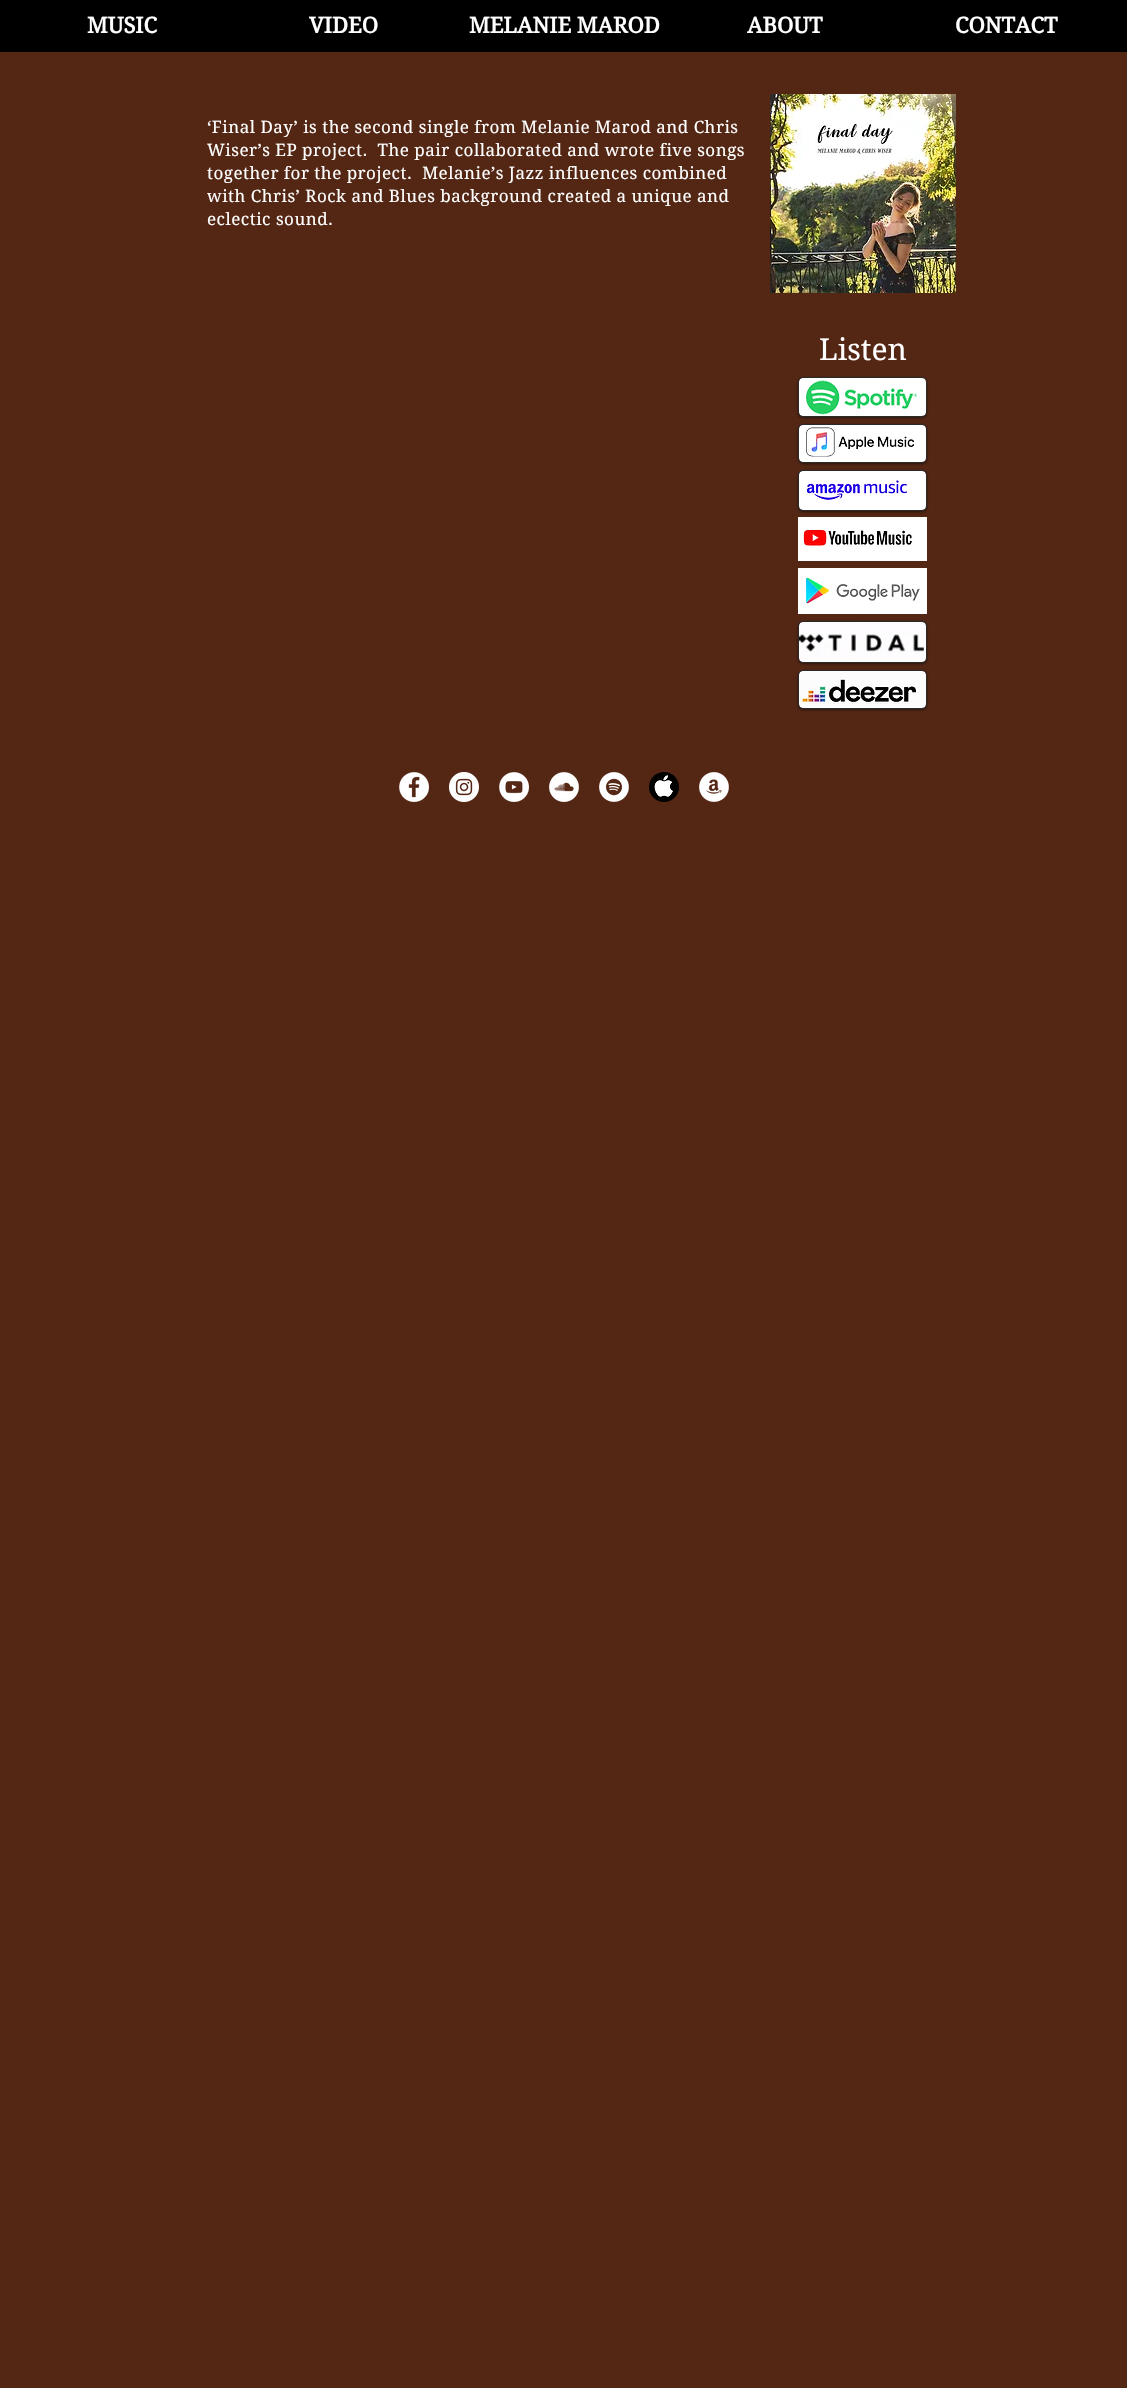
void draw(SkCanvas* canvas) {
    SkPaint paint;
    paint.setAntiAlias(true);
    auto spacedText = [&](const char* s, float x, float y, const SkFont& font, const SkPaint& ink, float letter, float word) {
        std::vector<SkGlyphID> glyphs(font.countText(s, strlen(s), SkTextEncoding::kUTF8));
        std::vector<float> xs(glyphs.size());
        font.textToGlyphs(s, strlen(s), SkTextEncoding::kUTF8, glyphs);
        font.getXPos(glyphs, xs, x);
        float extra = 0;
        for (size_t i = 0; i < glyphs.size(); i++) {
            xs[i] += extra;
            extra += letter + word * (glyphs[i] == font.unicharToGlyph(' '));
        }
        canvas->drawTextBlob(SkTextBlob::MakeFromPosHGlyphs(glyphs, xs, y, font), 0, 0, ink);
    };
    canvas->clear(0xFF542715);
    paint.setColor(0xFF000000);
    canvas->drawRect(SkRect::MakeXYWH(0, 0, 1127, 52), paint);
    SkFont font1(fontMgr->matchFamilyStyle("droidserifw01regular", SkFontStyle::Bold()), 22);
    font1.setSubpixel(true);
    paint.setColor(0xFFFFFFFF);
    canvas->drawString("MUSIC", 87, 33, font1, paint);
    canvas->drawString("VIDEO", 309, 33, font1, paint);
    canvas->drawString("MELANIE MAROD", 469, 33, font1, paint);
    canvas->drawString("ABOUT", 747, 33, font1, paint);
    canvas->drawString("CONTACT", 955, 33, font1, paint);
    SkFont font2(fontMgr->matchFamilyStyle("droidserifw01regular", SkFontStyle::Normal()), 17);
    font2.setSubpixel(true);
    spacedText("‘Final Day’ is the second single from Melanie Marod and Chris", 207, 133, font2, paint, 0.5f, 0);
    spacedText("Wiser’s EP project.  The pair collaborated and wrote five songs", 207, 156, font2, paint, 0.5f, 0);
    spacedText("together for the project.  Melanie’s Jazz influences combined", 207, 179, font2, paint, 0.5f, 0);
    spacedText("with Chris’ Rock and Blues background created a unique and", 207, 202, font2, paint, 0.5f, 0);
    spacedText("eclectic sound.", 207, 225, font2, paint, 0.5f, 0);
    canvas->drawImageRect(SkImages::DeferredFromEncodedData(SkData::MakeFromFileName("img1.png")), SkRect::MakeXYWH(770, 94, 186, 199), SkSamplingOptions());
    SkFont font3(fontMgr->matchFamilyStyle("droidserifw01regular", SkFontStyle::Normal()), 30);
    font3.setSubpixel(true);
    canvas->drawString("Listen", 819, 360, font3, paint);
    paint.setColor(0x80000000);
    paint.setMaskFilter(SkMaskFilter::MakeBlur(kNormal_SkBlurStyle, 1.5f));
    canvas->drawRoundRect(SkRect::MakeXYWH(798, 378, 129, 40), 5, 5, paint);
    paint.setMaskFilter(nullptr);
    paint.setStyle(SkPaint::kStroke_Style);
    paint.setStrokeWidth(1);
    paint.setColor(0xFF2A2A2A);
    canvas->drawRoundRect(SkRect::MakeXYWH(798.5f, 377.5f, 128, 39), 4.5f, 4.5f, paint);
    canvas->drawImageRect(SkImages::DeferredFromEncodedData(SkData::MakeFromFileName("img2.png")), SkRect::MakeXYWH(799, 378, 127, 38), SkSamplingOptions());
    paint.setStyle(SkPaint::kFill_Style);
    paint.setColor(0x80000000);
    paint.setMaskFilter(SkMaskFilter::MakeBlur(kNormal_SkBlurStyle, 1.5f));
    canvas->drawRoundRect(SkRect::MakeXYWH(798, 425, 129, 39), 5, 5, paint);
    paint.setMaskFilter(nullptr);
    paint.setStyle(SkPaint::kStroke_Style);
    paint.setColor(0xFF2A2A2A);
    canvas->drawRoundRect(SkRect::MakeXYWH(798.5f, 424.5f, 128, 38), 4.5f, 4.5f, paint);
    canvas->drawImageRect(SkImages::DeferredFromEncodedData(SkData::MakeFromFileName("img3.png")), SkRect::MakeXYWH(799, 425, 127, 37), SkSamplingOptions());
    paint.setStyle(SkPaint::kFill_Style);
    paint.setColor(0x80000000);
    paint.setMaskFilter(SkMaskFilter::MakeBlur(kNormal_SkBlurStyle, 1.5f));
    canvas->drawRoundRect(SkRect::MakeXYWH(798, 471, 129, 41), 5, 5, paint);
    paint.setMaskFilter(nullptr);
    paint.setColor(0xFF2A2A2A);
    canvas->drawRoundRect(SkRect::MakeXYWH(798.5f, 470.5f, 128, 40), 4.5f, 4.5f, paint);
    paint.setStyle(SkPaint::kStroke_Style);
    canvas->drawRoundRect(SkRect::MakeXYWH(798.5f, 470.5f, 128, 40), 4.5f, 4.5f, paint);
    canvas->drawImageRect(SkImages::DeferredFromEncodedData(SkData::MakeFromFileName("img4.png")), SkRect::MakeXYWH(799, 471, 127, 39), SkSamplingOptions());
    canvas->drawImageRect(SkImages::DeferredFromEncodedData(SkData::MakeFromFileName("img5.png")), SkRect::MakeXYWH(798, 517, 129, 44), SkSamplingOptions());
    canvas->drawImageRect(SkImages::DeferredFromEncodedData(SkData::MakeFromFileName("img6.png")), SkRect::MakeXYWH(798, 568, 129, 46), SkSamplingOptions());
    paint.setStyle(SkPaint::kFill_Style);
    paint.setColor(0x80000000);
    paint.setMaskFilter(SkMaskFilter::MakeBlur(kNormal_SkBlurStyle, 1.5f));
    canvas->drawRoundRect(SkRect::MakeXYWH(798, 622, 129, 42), 5, 5, paint);
    paint.setMaskFilter(nullptr);
    paint.setStyle(SkPaint::kStroke_Style);
    paint.setColor(0xFF2A2A2A);
    canvas->drawRoundRect(SkRect::MakeXYWH(798.5f, 621.5f, 128, 41), 4.5f, 4.5f, paint);
    canvas->drawImageRect(SkImages::DeferredFromEncodedData(SkData::MakeFromFileName("img7.png")), SkRect::MakeXYWH(799, 622, 127, 40), SkSamplingOptions());
    paint.setStyle(SkPaint::kFill_Style);
    paint.setColor(0x80000000);
    paint.setMaskFilter(SkMaskFilter::MakeBlur(kNormal_SkBlurStyle, 1.5f));
    canvas->drawRoundRect(SkRect::MakeXYWH(798, 671, 129, 39), 5, 5, paint);
    paint.setMaskFilter(nullptr);
    paint.setStyle(SkPaint::kStroke_Style);
    paint.setColor(0xFF2A2A2A);
    canvas->drawRoundRect(SkRect::MakeXYWH(798.5f, 670.5f, 128, 38), 4.5f, 4.5f, paint);
    canvas->drawImageRect(SkImages::DeferredFromEncodedData(SkData::MakeFromFileName("img8.png")), SkRect::MakeXYWH(799, 671, 127, 37), SkSamplingOptions());
    canvas->drawImageRect(SkImages::DeferredFromEncodedData(SkData::MakeFromFileName("img9.png")), SkRect::MakeXYWH(399, 772, 30, 30), SkSamplingOptions());
    canvas->drawImageRect(SkImages::DeferredFromEncodedData(SkData::MakeFromFileName("img10.png")), SkRect::MakeXYWH(449, 772, 30, 30), SkSamplingOptions());
    canvas->drawImageRect(SkImages::DeferredFromEncodedData(SkData::MakeFromFileName("img11.png")), SkRect::MakeXYWH(499, 772, 30, 30), SkSamplingOptions());
    canvas->drawImageRect(SkImages::DeferredFromEncodedData(SkData::MakeFromFileName("img12.png")), SkRect::MakeXYWH(549, 772, 30, 30), SkSamplingOptions());
    canvas->drawImageRect(SkImages::DeferredFromEncodedData(SkData::MakeFromFileName("img13.png")), SkRect::MakeXYWH(599, 772, 30, 30), SkSamplingOptions());
    canvas->drawImageRect(SkImages::DeferredFromEncodedData(SkData::MakeFromFileName("img14.png")), SkRect::MakeXYWH(649, 772, 30, 30), SkSamplingOptions());
    canvas->drawImageRect(SkImages::DeferredFromEncodedData(SkData::MakeFromFileName("img15.png")), SkRect::MakeXYWH(699, 772, 30, 30), SkSamplingOptions());
}
